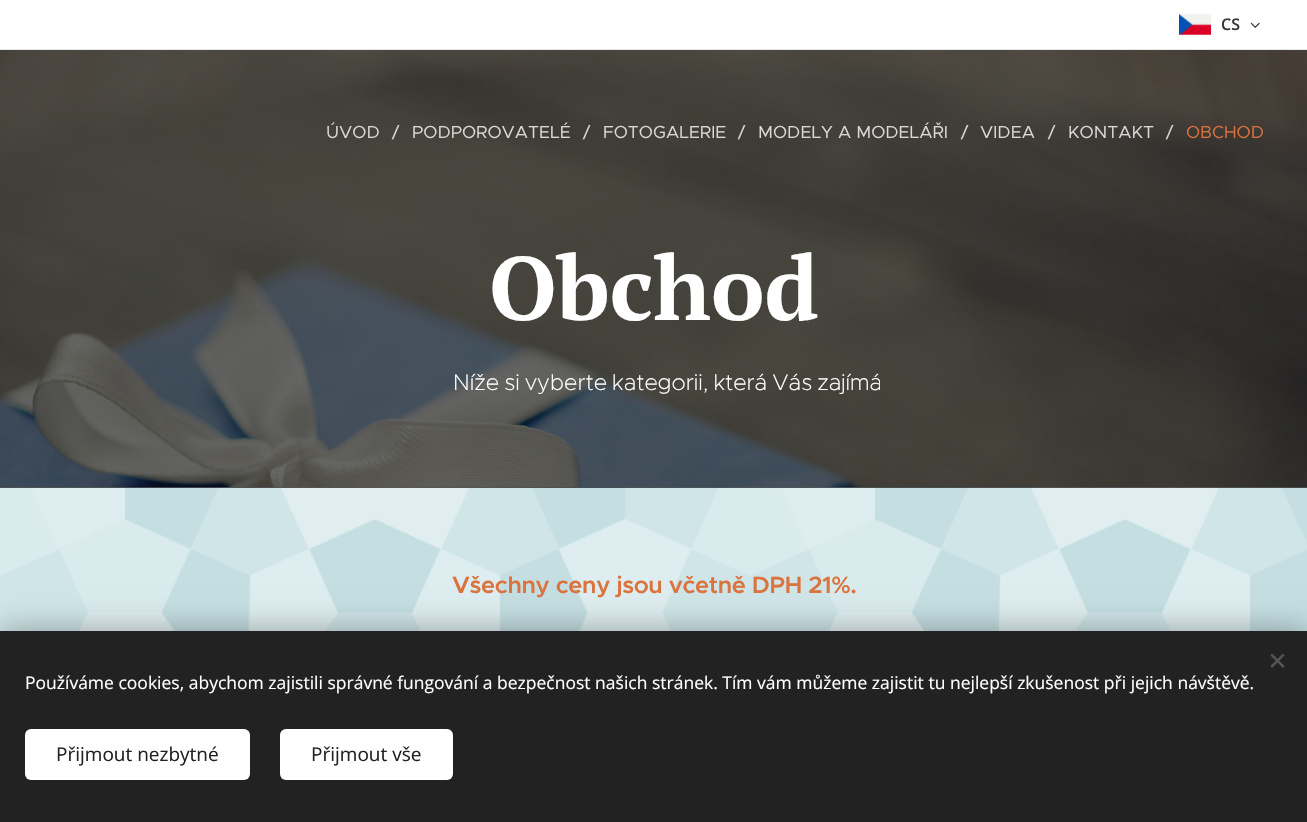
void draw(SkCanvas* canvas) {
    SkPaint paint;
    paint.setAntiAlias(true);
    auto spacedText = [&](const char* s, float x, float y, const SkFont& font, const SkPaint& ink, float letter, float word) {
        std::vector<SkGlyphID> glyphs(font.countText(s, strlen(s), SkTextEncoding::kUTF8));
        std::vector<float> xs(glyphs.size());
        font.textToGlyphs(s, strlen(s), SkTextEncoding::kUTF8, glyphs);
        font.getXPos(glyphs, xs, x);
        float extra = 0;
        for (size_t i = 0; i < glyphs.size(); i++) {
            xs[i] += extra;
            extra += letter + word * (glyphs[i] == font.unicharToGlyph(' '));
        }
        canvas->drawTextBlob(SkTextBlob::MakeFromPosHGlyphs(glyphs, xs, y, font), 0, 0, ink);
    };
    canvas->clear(0xFFFFFFFF);
    canvas->drawImageRect(SkImages::DeferredFromEncodedData(SkData::MakeFromFileName("img1.png")), SkRect::MakeXYWH(1179, 13, 32, 22), SkSamplingOptions());
    SkFont font1(fontMgr->matchFamilyStyle("Open Sans", SkFontStyle(600, SkFontStyle::kNormal_Width, SkFontStyle::kUpright_Slant)), 16);
    font1.setSubpixel(true);
    paint.setColor(0xFF393939);
    canvas->drawString("CS", 1221, 30, font1, paint);
    canvas->drawImageRect(SkImages::DeferredFromEncodedData(SkData::MakeFromFileName("img2.png")), SkRect::MakeXYWH(1250, 22, 10, 6), SkSamplingOptions());
    paint.setColor(0xFFE8E8E8);
    canvas->drawRect(SkRect::MakeXYWH(0, 49, 1307, 1), paint);
    paint.setColor(0xFF101010);
    canvas->drawRect(SkRect::MakeXYWH(0, 487, 1307, 1), paint);
    canvas->drawImageRect(SkImages::DeferredFromEncodedData(SkData::MakeFromFileName("img3.png")), SkRect::MakeXYWH(0, 50, 1307, 438), SkSamplingOptions());
    SkFont font2(fontMgr->matchFamilyStyle("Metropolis", SkFontStyle::Normal()), 17.5f);
    font2.setSubpixel(true);
    paint.setColor(0xFFDAD9D8);
    canvas->drawString("ÚVOD", 326, 138, font2, paint);
    canvas->drawString("/", 392, 138, font2, paint);
    canvas->drawString("PODPOROVATELÉ", 412, 138, font2, paint);
    canvas->drawString("/", 583, 138, font2, paint);
    canvas->drawString("FOTOGALERIE", 603, 138, font2, paint);
    canvas->drawString("/", 738, 138, font2, paint);
    canvas->drawString("MODELY A MODELÁŘI", 758, 138, font2, paint);
    canvas->drawString("/", 961, 138, font2, paint);
    canvas->drawString("VIDEA", 980, 138, font2, paint);
    canvas->drawString("/", 1048, 138, font2, paint);
    canvas->drawString("KONTAKT", 1068, 138, font2, paint);
    canvas->drawString("/", 1166, 138, font2, paint);
    paint.setColor(0xFFDB733E);
    canvas->drawString("OBCHOD", 1186, 138, font2, paint);
    SkFont font3(fontMgr->matchFamilyStyle("PT Serif", SkFontStyle::Bold()), 90);
    font3.setSubpixel(true);
    paint.setColor(0xFFFFFFFF);
    canvas->drawString("Obchod", 489, 320, font3, paint);
    canvas->save();
    canvas->clipRect(SkRect::MakeXYWH(428, 360, 452, 46));
    SkFont font4(fontMgr->matchFamilyStyle("Metropolis", SkFontStyle(200, SkFontStyle::kNormal_Width, SkFontStyle::kUpright_Slant)), 22.5f);
    font4.setSubpixel(true);
    spacedText("Níže si vyberte kategorii, která Vás zajímá", 453, 390, font4, paint, 0, -1.5f);
    canvas->restore();
    canvas->drawImageRect(SkImages::DeferredFromEncodedData(SkData::MakeFromFileName("img4.png")), SkRect::MakeXYWH(0, 487, 1307, 144), SkSamplingOptions());
    SkFont font5(fontMgr->matchFamilyStyle("Metropolis", SkFontStyle(600, SkFontStyle::kNormal_Width, SkFontStyle::kUpright_Slant)), 23.75f);
    font5.setSubpixel(true);
    paint.setColor(0xFFDB733E);
    spacedText("Všechny ceny jsou včetně DPH 21%.", 452, 593, font5, paint, -0.35f, 0);
    paint.setColor(0x54000000);
    paint.setMaskFilter(SkMaskFilter::MakeBlur(kNormal_SkBlurStyle, 15.5f));
    canvas->drawRect(SkRect::MakeXYWH(0, 631, 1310, 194), paint);
    paint.setMaskFilter(nullptr);
    paint.setColor(0xFF222222);
    canvas->drawRect(SkRect::MakeXYWH(0, 631, 1307, 191), paint);
    paint.setColor(0xFF555555);
    canvas->drawPath(SkPathBuilder().moveTo(1270.5f, 666).lineTo(1283, 653.5f).lineTo(1284.5f, 655.5f).lineTo(1272, 668).close().detach(), paint);
    canvas->drawPath(SkPathBuilder().moveTo(1272, 653.5f).lineTo(1284.5f, 666).lineTo(1283, 668).lineTo(1270.5f, 655.5f).close().detach(), paint);
    SkFont font6(fontMgr->matchFamilyStyle("Open Sans", SkFontStyle::Normal()), 17.5f);
    font6.setSubpixel(true);
    paint.setColor(0xFFFFFFFF);
    canvas->drawString("Používáme cookies, abychom zajistili správné fungování a bezpečnost našich stránek. Tím vám můžeme zajistit tu nejlepší zkušenost při jejich návštěvě.", 25, 689, font6, paint);
    canvas->drawRoundRect(SkRect::MakeXYWH(25, 729, 225, 51), 6, 6, paint);
    SkFont font7(fontMgr->matchFamilyStyle("Open Sans", SkFontStyle::Normal()), 19);
    font7.setSubpixel(true);
    paint.setColor(0xFF222222);
    canvas->drawString("Přijmout nezbytné", 56, 761, font7, paint);
    paint.setColor(0xFFFFFFFF);
    canvas->drawRoundRect(SkRect::MakeXYWH(280, 729, 173, 51), 6, 6, paint);
    paint.setColor(0xFF222222);
    canvas->drawString("Přijmout vše", 311, 761, font7, paint);
}
